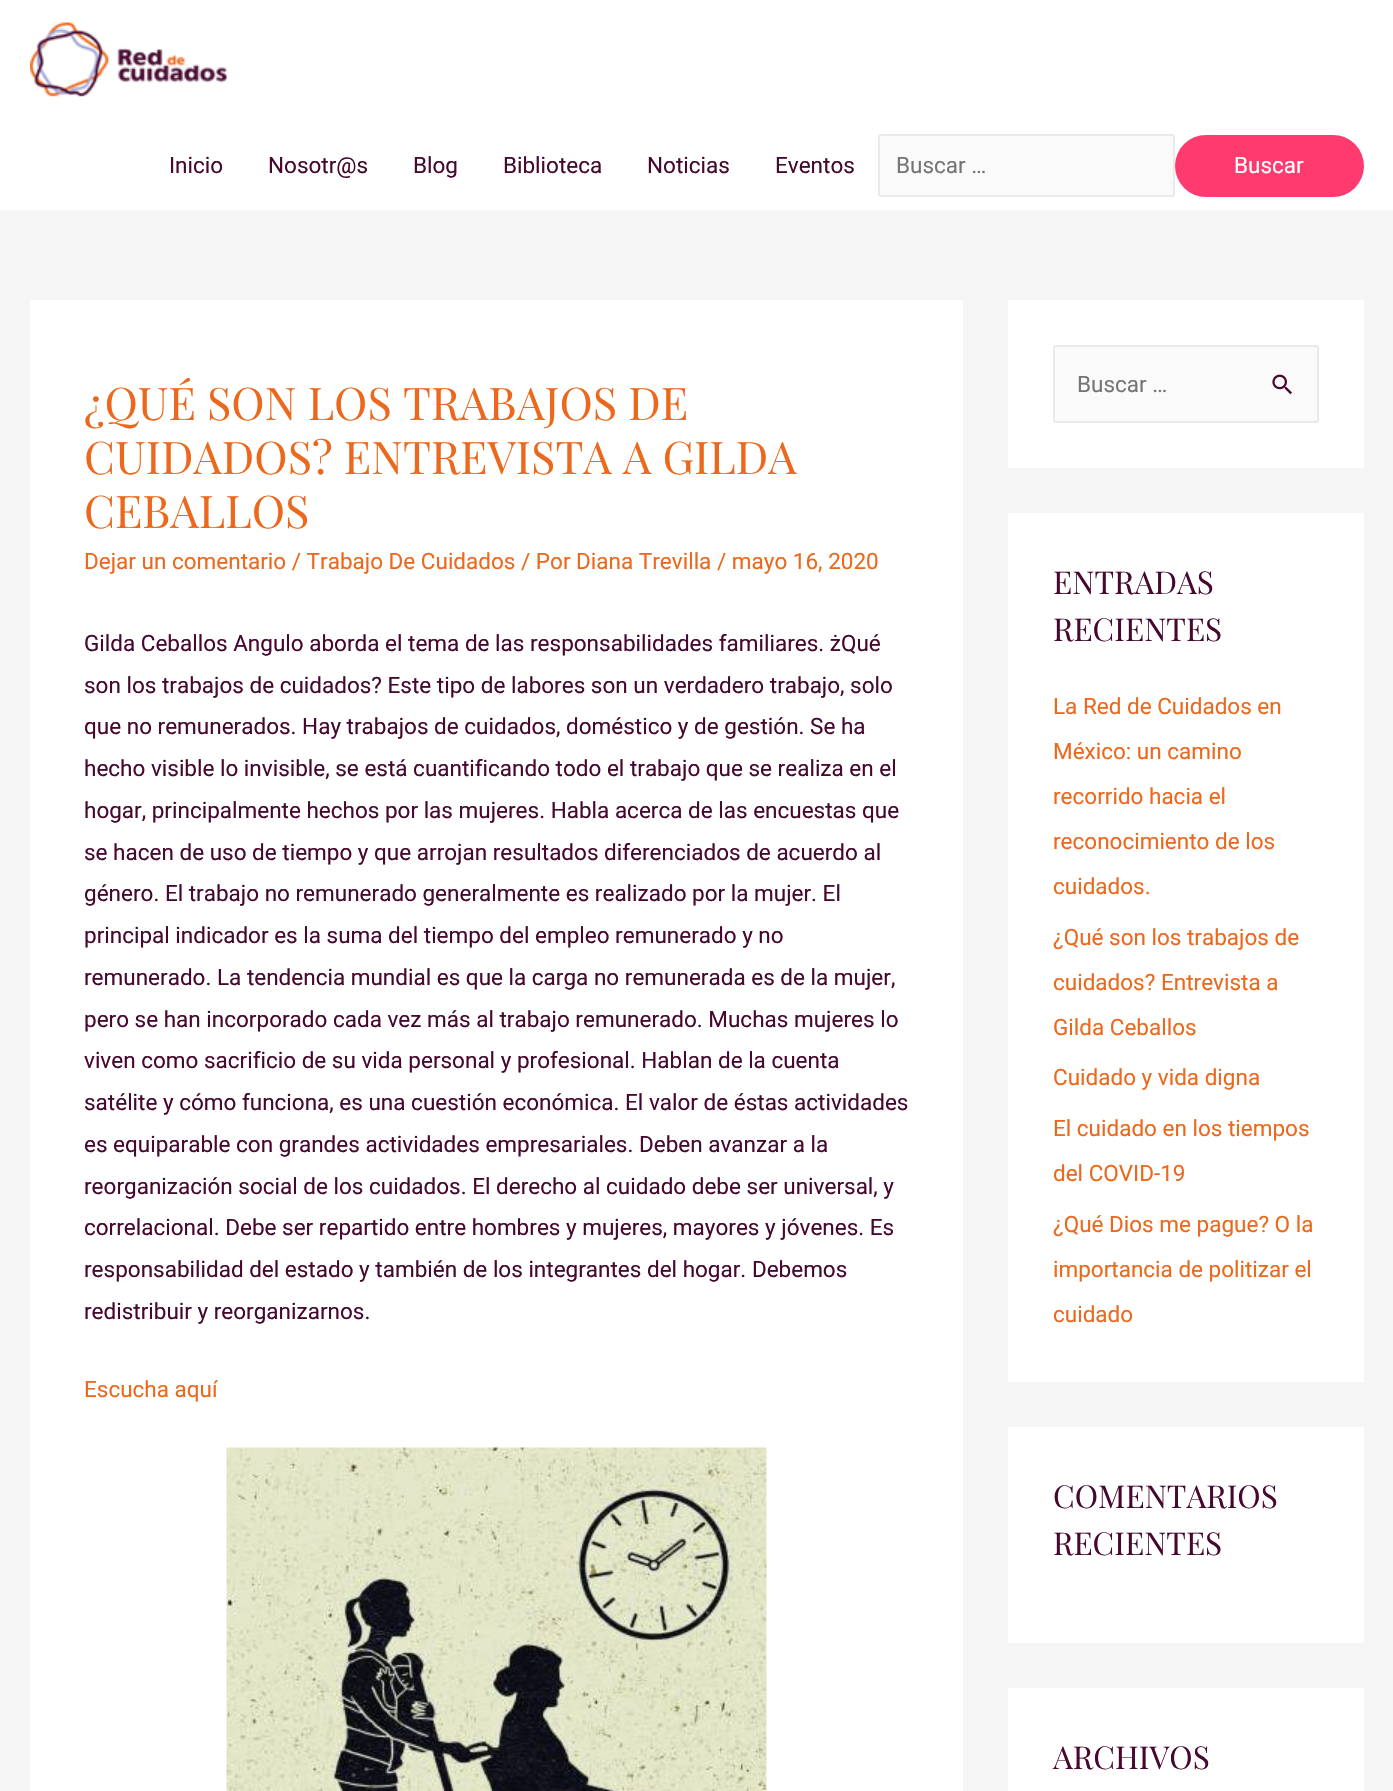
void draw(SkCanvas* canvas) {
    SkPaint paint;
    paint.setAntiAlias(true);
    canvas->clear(0xFFF5F5F5);
    paint.setColor(0xFFFFFFFF);
    canvas->drawRect(SkRect::MakeXYWH(0, 0, 1393, 210), paint);
    canvas->drawImageRect(SkImages::DeferredFromEncodedData(SkData::MakeFromFileName("img1.png")), SkRect::MakeXYWH(30, 22, 197, 75), SkSamplingOptions());
    SkFont font1(fontMgr->matchFamilyStyle("Roboto", SkFontStyle::Normal()), 22.5f);
    font1.setSubpixel(true);
    paint.setColor(0xFF46082F);
    canvas->drawString("Inicio", 169, 173, font1, paint);
    canvas->drawString("Nosotr@s", 268, 173, font1, paint);
    canvas->drawString("Blog", 413, 173, font1, paint);
    canvas->drawString("Biblioteca", 503, 173, font1, paint);
    canvas->drawString("Noticias", 647, 173, font1, paint);
    canvas->drawString("Eventos", 775, 173, font1, paint);
    paint.setColor(0xFFFAFAFA);
    canvas->drawRoundRect(SkRect::MakeXYWH(879, 135, 295, 61), 2, 2, paint);
    paint.setStyle(SkPaint::kStroke_Style);
    paint.setStrokeWidth(2);
    paint.setColor(0xFFEAEAEA);
    canvas->drawRoundRect(SkRect::MakeXYWH(879, 135, 295, 61), 2, 2, paint);
    paint.setStyle(SkPaint::kFill_Style);
    paint.setColor(0xFF757575);
    canvas->drawString("Buscar …", 896, 173, font1, paint);
    paint.setColor(0xFFFF3A6F);
    canvas->drawRoundRect(SkRect::MakeXYWH(1175, 135, 189, 62), 31, 31, paint);
    paint.setColor(0xFFFFFFFF);
    canvas->drawString("Buscar", 1234, 173, font1, paint);
    canvas->drawRect(SkRect::MakeXYWH(30, 300, 933, 1491), paint);
    SkFont font2(fontMgr->matchFamilyStyle("Playfair Display", SkFontStyle::Normal()), 45);
    font2.setSubpixel(true);
    paint.setColor(0xFFEC681C);
    canvas->drawString("¿QUÉ SON LOS TRABAJOS DE", 84, 420, font2, paint);
    canvas->drawString("CUIDADOS? ENTREVISTA A GILDA", 84, 474, font2, paint);
    canvas->drawString("CEBALLOS", 84, 528, font2, paint);
    canvas->drawString("Dejar un comentario / Trabajo De Cuidados / Por Diana Trevilla / mayo 16, 2020", 84, 569, font1, paint);
    paint.setColor(0xFF46082F);
    canvas->drawString("Gilda Ceballos Angulo aborda el tema de las responsabilidades familiares. żQué", 84, 651, font1, paint);
    canvas->drawString("son los trabajos de cuidados? Este tipo de labores son un verdadero trabajo, solo", 84, 693, font1, paint);
    canvas->drawString("que no remunerados. Hay trabajos de cuidados, doméstico y de gestión. Se ha", 84, 734, font1, paint);
    canvas->drawString("hecho visible lo invisible, se está cuantificando todo el trabajo que se realiza en el", 84, 776, font1, paint);
    canvas->drawString("hogar, principalmente hechos por las mujeres. Habla acerca de las encuestas que", 84, 818, font1, paint);
    canvas->drawString("se hacen de uso de tiempo y que arrojan resultados diferenciados de acuerdo al", 84, 860, font1, paint);
    canvas->drawString("género. El trabajo no remunerado generalmente es realizado por la mujer. El", 84, 901, font1, paint);
    canvas->drawString("principal indicador es la suma del tiempo del empleo remunerado y no", 84, 943, font1, paint);
    canvas->drawString("remunerado. La tendencia mundial es que la carga no remunerada es de la mujer,", 84, 985, font1, paint);
    canvas->drawString("pero se han incorporado cada vez más al trabajo remunerado. Muchas mujeres lo", 84, 1027, font1, paint);
    canvas->drawString("viven como sacrificio de su vida personal y profesional. Hablan de la cuenta", 84, 1068, font1, paint);
    canvas->drawString("satélite y cómo funciona, es una cuestión económica. El valor de éstas actividades", 84, 1110, font1, paint);
    canvas->drawString("es equiparable con grandes actividades empresariales. Deben avanzar a la", 84, 1152, font1, paint);
    canvas->drawString("reorganización social de los cuidados. El derecho al cuidado debe ser universal, y", 84, 1194, font1, paint);
    canvas->drawString("correlacional. Debe ser repartido entre hombres y mujeres, mayores y jóvenes. Es", 84, 1235, font1, paint);
    canvas->drawString("responsabilidad del estado y también de los integrantes del hogar. Debemos", 84, 1277, font1, paint);
    canvas->drawString("redistribuir y reorganizarnos.", 84, 1319, font1, paint);
    paint.setColor(0xFFEC681C);
    canvas->drawString("Escucha aquí", 84, 1397, font1, paint);
    canvas->drawImageRect(SkImages::DeferredFromEncodedData(SkData::MakeFromFileName("img2.png")), SkRect::MakeXYWH(226, 1447, 541, 344), SkSamplingOptions());
    paint.setColor(0xFFFFFFFF);
    canvas->drawRect(SkRect::MakeXYWH(1008, 300, 356, 168), paint);
    paint.setColor(0xFFFAFAFA);
    canvas->drawRoundRect(SkRect::MakeXYWH(1054, 346, 264, 76), 2, 2, paint);
    paint.setStyle(SkPaint::kStroke_Style);
    paint.setColor(0xFFEAEAEA);
    canvas->drawRoundRect(SkRect::MakeXYWH(1054, 346, 264, 76), 2, 2, paint);
    paint.setStyle(SkPaint::kFill_Style);
    paint.setColor(0xFF757575);
    canvas->drawString("Buscar …", 1077, 392, font1, paint);
    canvas->drawImageRect(SkImages::DeferredFromEncodedData(SkData::MakeFromFileName("img3.png")), SkRect::MakeXYWH(1272, 374, 20, 21), SkSamplingOptions());
    paint.setColor(0xFFFFFFFF);
    canvas->drawRect(SkRect::MakeXYWH(1008, 513, 356, 869), paint);
    SkFont font3(fontMgr->matchFamilyStyle("Playfair Display", SkFontStyle::Normal()), 31.5f);
    font3.setSubpixel(true);
    paint.setColor(0xFF46082F);
    canvas->drawString("ENTRADAS", 1053, 594, font3, paint);
    canvas->drawString("RECIENTES", 1053, 641, font3, paint);
    paint.setColor(0xFFEC681C);
    canvas->drawString("La Red de Cuidados en", 1053, 714, font1, paint);
    canvas->drawString("México: un camino", 1053, 759, font1, paint);
    canvas->drawString("recorrido hacia el", 1053, 804, font1, paint);
    canvas->drawString("reconocimiento de los", 1053, 849, font1, paint);
    canvas->drawString("cuidados.", 1053, 894, font1, paint);
    canvas->drawString("¿Qué son los trabajos de", 1053, 945, font1, paint);
    canvas->drawString("cuidados? Entrevista a", 1053, 990, font1, paint);
    canvas->drawString("Gilda Ceballos", 1053, 1035, font1, paint);
    canvas->drawString("Cuidado y vida digna", 1053, 1085, font1, paint);
    canvas->drawString("El cuidado en los tiempos", 1053, 1136, font1, paint);
    canvas->drawString("del COVID-19", 1053, 1181, font1, paint);
    canvas->drawString("¿Qué Dios me pague? O la", 1053, 1232, font1, paint);
    canvas->drawString("importancia de politizar el", 1053, 1277, font1, paint);
    canvas->drawString("cuidado", 1053, 1322, font1, paint);
    paint.setColor(0xFFFFFFFF);
    canvas->drawRect(SkRect::MakeXYWH(1008, 1427, 356, 216), paint);
    paint.setColor(0xFF46082F);
    canvas->drawString("COMENTARIOS", 1053, 1508, font3, paint);
    canvas->drawString("RECIENTES", 1053, 1555, font3, paint);
    paint.setColor(0xFFFFFFFF);
    canvas->drawRect(SkRect::MakeXYWH(1008, 1688, 356, 103), paint);
    paint.setColor(0xFF46082F);
    canvas->drawString("ARCHIVOS", 1053, 1769, font3, paint);
}
